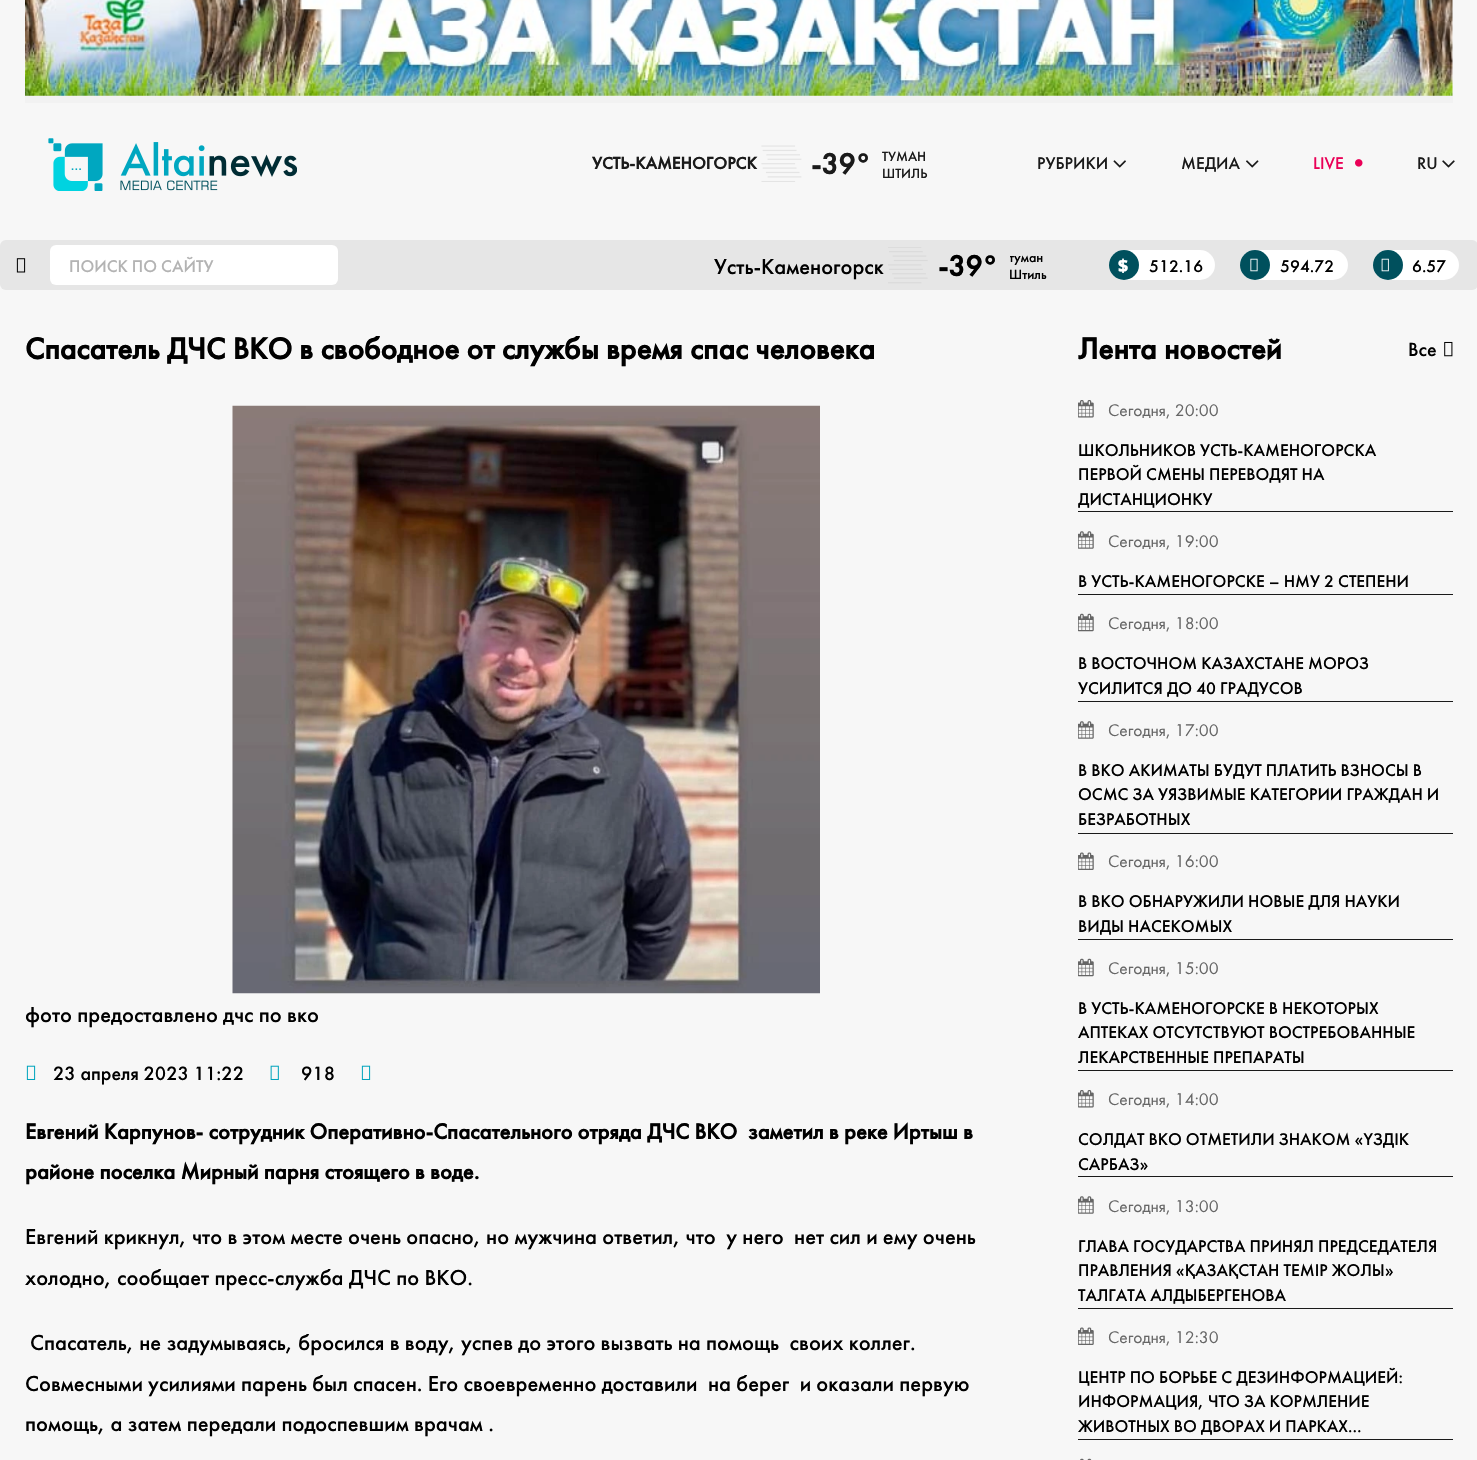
void draw(SkCanvas* canvas) {
    SkPaint paint;
    paint.setAntiAlias(true);
    canvas->clear(0xFFF7F7F7);
    paint.setColor(0xFFF2F2F2);
    canvas->drawRect(SkRect::MakeXYWH(25, 76, 1428, 27), paint);
    canvas->drawImageRect(SkImages::DeferredFromEncodedData(SkData::MakeFromFileName("img1.png")), SkRect::MakeXYWH(25, 0, 1428, 96), SkSamplingOptions());
    canvas->drawImageRect(SkImages::DeferredFromEncodedData(SkData::MakeFromFileName("img2.png")), SkRect::MakeXYWH(48, 138, 249, 53), SkSamplingOptions());
    SkFont font1(fontMgr->matchFamilyStyle("Futura PT", SkFontStyle::Bold()), 17.5f);
    font1.setSubpixel(true);
    paint.setColor(0xFF1A1A1A);
    canvas->drawString("УСТЬ-КАМЕНОГОРСК", 592, 169, font1, paint);
    canvas->drawImageRect(SkImages::DeferredFromEncodedData(SkData::MakeFromFileName("img3.png")), SkRect::MakeXYWH(761, 145, 41, 37), SkSamplingOptions());
    SkFont font2(fontMgr->matchFamilyStyle("Futura PT", SkFontStyle::Bold()), 30);
    font2.setSubpixel(true);
    canvas->drawString("-39°", 811, 174, font2, paint);
    SkFont font3(fontMgr->matchFamilyStyle("Futura PT", SkFontStyle(500, SkFontStyle::kNormal_Width, SkFontStyle::kUpright_Slant)), 14);
    font3.setSubpixel(true);
    canvas->drawString("ТУМАН", 882, 161, font3, paint);
    canvas->drawString("ШТИЛЬ", 882, 178, font3, paint);
    SkFont font4(fontMgr->matchFamilyStyle("Futura PT", SkFontStyle(500, SkFontStyle::kNormal_Width, SkFontStyle::kUpright_Slant)), 17.5f);
    font4.setSubpixel(true);
    canvas->drawString("РУБРИКИ", 1037, 169, font4, paint);
    canvas->drawImageRect(SkImages::DeferredFromEncodedData(SkData::MakeFromFileName("img4.png")), SkRect::MakeXYWH(1113, 160, 13, 8), SkSamplingOptions());
    canvas->drawString("МЕДИА", 1181, 169, font4, paint);
    canvas->drawImageRect(SkImages::DeferredFromEncodedData(SkData::MakeFromFileName("img5.png")), SkRect::MakeXYWH(1246, 160, 13, 8), SkSamplingOptions());
    paint.setColor(0xFFEA0057);
    canvas->drawString("LIVE", 1313, 169, font4, paint);
    canvas->drawImageRect(SkImages::DeferredFromEncodedData(SkData::MakeFromFileName("img6.png")), SkRect::MakeXYWH(1355, 159, 8, 8), SkSamplingOptions());
    paint.setColor(0xFF1A1A1A);
    canvas->drawString("RU", 1417, 169, font4, paint);
    canvas->drawImageRect(SkImages::DeferredFromEncodedData(SkData::MakeFromFileName("img7.png")), SkRect::MakeXYWH(1442, 160, 13, 8), SkSamplingOptions());
    paint.setColor(0xFFE6E6E6);
    canvas->drawRoundRect(SkRect::MakeXYWH(0, 240, 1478, 50), 6, 6, paint);
    canvas->drawImageRect(SkImages::DeferredFromEncodedData(SkData::MakeFromFileName("img8.png")), SkRect::MakeXYWH(16, 258, 10, 15), SkSamplingOptions());
    paint.setColor(0xFFFFFFFF);
    canvas->drawRoundRect(SkRect::MakeXYWH(50, 245, 288, 40), 6, 6, paint);
    paint.setColor(0xFFB3B3B3);
    canvas->drawString("ПОИСК ПО САЙТУ", 69, 272, font4, paint);
    SkFont font5(fontMgr->matchFamilyStyle("Futura PT", SkFontStyle(500, SkFontStyle::kNormal_Width, SkFontStyle::kUpright_Slant)), 22.5f);
    font5.setSubpixel(true);
    paint.setColor(0xFF000000);
    canvas->drawString("Усть-Каменогорск", 714, 274, font5, paint);
    canvas->drawImageRect(SkImages::DeferredFromEncodedData(SkData::MakeFromFileName("img9.png")), SkRect::MakeXYWH(888, 247, 40, 37), SkSamplingOptions());
    canvas->drawString("-39°", 938, 276, font2, paint);
    canvas->save();
    canvas->clipRect(SkRect::MakeXYWH(1010, 248, 36, 17));
    canvas->drawString("туман", 1009, 262, font3, paint);
    canvas->restore();
    canvas->drawString("Штиль", 1009, 279, font3, paint);
    paint.setColor(0xFFFFFFFF);
    canvas->drawRoundRect(SkRect::MakeXYWH(1109, 250, 106, 30), 15, 15, paint);
    paint.setColor(0xFF00505D);
    canvas->drawCircle(1124, 265, 15, paint);
    SkFont font6(fontMgr->matchFamilyStyle("Noto Sans", SkFontStyle(900, SkFontStyle::kNormal_Width, SkFontStyle::kUpright_Slant)), 17.5f);
    font6.setSubpixel(true);
    paint.setColor(0xFFFFFFFF);
    canvas->drawString("$", 1118, 272, font6, paint);
    paint.setColor(0xFF000000);
    canvas->drawString("512.16", 1149, 272, font4, paint);
    paint.setColor(0xFFFFFFFF);
    canvas->drawRoundRect(SkRect::MakeXYWH(1240, 250, 108, 30), 15, 15, paint);
    paint.setColor(0xFF00505D);
    canvas->drawCircle(1255, 265, 15, paint);
    canvas->drawImageRect(SkImages::DeferredFromEncodedData(SkData::MakeFromFileName("img10.png")), SkRect::MakeXYWH(1250, 258, 8, 14), SkSamplingOptions());
    paint.setColor(0xFF000000);
    canvas->drawString("594.72", 1280, 272, font4, paint);
    paint.setColor(0xFFFFFFFF);
    canvas->drawRoundRect(SkRect::MakeXYWH(1373, 250, 86, 30), 15, 15, paint);
    paint.setColor(0xFF00505D);
    canvas->drawCircle(1388, 265, 15, paint);
    canvas->drawImageRect(SkImages::DeferredFromEncodedData(SkData::MakeFromFileName("img11.png")), SkRect::MakeXYWH(1381, 258, 8, 14), SkSamplingOptions());
    paint.setColor(0xFF000000);
    canvas->drawString("6.57", 1412, 272, font4, paint);
    SkFont font7(fontMgr->matchFamilyStyle("Futura PT", SkFontStyle::Bold()), 31.25f);
    font7.setSubpixel(true);
    canvas->drawString("Спасатель ДЧС ВКО в свободное от службы время спас человека", 25, 359, font7, paint);
    canvas->drawImageRect(SkImages::DeferredFromEncodedData(SkData::MakeFromFileName("img12.png")), SkRect::MakeXYWH(232, 405, 588, 589), SkSamplingOptions());
    canvas->drawString("фото предоставлено дчс по вко", 25, 1022, font5, paint);
    canvas->drawImageRect(SkImages::DeferredFromEncodedData(SkData::MakeFromFileName("img13.png")), SkRect::MakeXYWH(26, 1065, 10, 15), SkSamplingOptions());
    SkFont font8(fontMgr->matchFamilyStyle("Futura PT", SkFontStyle(500, SkFontStyle::kNormal_Width, SkFontStyle::kUpright_Slant)), 20);
    font8.setSubpixel(true);
    canvas->drawString("23 апреля 2023 11:22", 53, 1080, font8, paint);
    canvas->drawImageRect(SkImages::DeferredFromEncodedData(SkData::MakeFromFileName("img14.png")), SkRect::MakeXYWH(270, 1065, 9, 15), SkSamplingOptions());
    canvas->drawString("918", 301, 1080, font8, paint);
    canvas->drawImageRect(SkImages::DeferredFromEncodedData(SkData::MakeFromFileName("img13.png")), SkRect::MakeXYWH(361, 1065, 10, 15), SkSamplingOptions());
    SkFont font9(fontMgr->matchFamilyStyle("Futura PT", SkFontStyle::Bold()), 22.5f);
    font9.setSubpixel(true);
    canvas->drawString("Евгений Карпунов- сотрудник Оперативно-Спасательного отряда ДЧС ВКО  заметил в реке Иртыш в", 25, 1139, font9, paint);
    canvas->drawString("районе поселка Мирный парня стоящего в воде.", 25, 1179, font9, paint);
    canvas->drawString("Евгений крикнул, что в этом месте очень опасно, но мужчина ответил, что  у него  нет сил и ему очень", 25, 1244, font5, paint);
    canvas->drawString("холодно, сообщает пресс-служба ДЧС по ВКО.", 25, 1285, font5, paint);
    canvas->drawString("Спасатель, не задумываясь, бросился в воду, успев до этого вызвать на помощь  своих коллег.", 30, 1350, font5, paint);
    canvas->drawString("Совмесными усилиями парень был спасен. Его своевременно доставили  на берег  и оказали первую", 25, 1391, font5, paint);
    canvas->drawString("помощь, а затем передали подоспевшим врачам .", 25, 1431, font5, paint);
    canvas->drawString("Лента новостей", 1078, 359, font7, paint);
    canvas->drawString("Все", 1408, 356, font8, paint);
    canvas->drawImageRect(SkImages::DeferredFromEncodedData(SkData::MakeFromFileName("img15.png")), SkRect::MakeXYWH(1444, 341, 9, 16), SkSamplingOptions());
    paint.setColor(0xFF1A1A1A);
    canvas->drawRect(SkRect::MakeXYWH(1078, 511, 375, 1), paint);
    canvas->drawImageRect(SkImages::DeferredFromEncodedData(SkData::MakeFromFileName("img16.png")), SkRect::MakeXYWH(1078, 400, 16, 18), SkSamplingOptions());
    SkFont font10(fontMgr->matchFamilyStyle("Futura PT", SkFontStyle::Normal()), 17.5f);
    font10.setSubpixel(true);
    paint.setColor(0xFF666666);
    canvas->drawString("Сегодня, 20:00", 1108, 416, font10, paint);
    paint.setColor(0xFF000000);
    canvas->drawString("ШКОЛЬНИКОВ УСТЬ-КАМЕНОГОРСКА", 1078, 456, font4, paint);
    canvas->drawString("ПЕРВОЙ СМЕНЫ ПЕРЕВОДЯТ НА", 1078, 480, font4, paint);
    canvas->save();
    canvas->clipRect(SkRect::MakeXYWH(1078, 439, 362, 72));
    canvas->drawString("ДИСТАНЦИОНКУ", 1078, 505, font4, paint);
    canvas->restore();
    paint.setColor(0xFF1A1A1A);
    canvas->drawRect(SkRect::MakeXYWH(1078, 594, 375, 1), paint);
    canvas->drawImageRect(SkImages::DeferredFromEncodedData(SkData::MakeFromFileName("img17.png")), SkRect::MakeXYWH(1078, 531, 16, 18), SkSamplingOptions());
    paint.setColor(0xFF666666);
    canvas->drawString("Сегодня, 19:00", 1108, 547, font10, paint);
    paint.setColor(0xFF000000);
    canvas->drawString("В УСТЬ-КАМЕНОГОРСКЕ – НМУ 2 СТЕПЕНИ", 1078, 587, font4, paint);
    paint.setColor(0xFF1A1A1A);
    canvas->drawRect(SkRect::MakeXYWH(1078, 701, 375, 1), paint);
    canvas->drawImageRect(SkImages::DeferredFromEncodedData(SkData::MakeFromFileName("img18.png")), SkRect::MakeXYWH(1078, 613, 16, 19), SkSamplingOptions());
    paint.setColor(0xFF666666);
    canvas->drawString("Сегодня, 18:00", 1108, 629, font10, paint);
    paint.setColor(0xFF000000);
    canvas->drawString("В ВОСТОЧНОМ КАЗАХСТАНЕ МОРОЗ", 1078, 669, font4, paint);
    canvas->drawString("УСИЛИТСЯ ДО 40 ГРАДУСОВ", 1078, 694, font4, paint);
    paint.setColor(0xFF1A1A1A);
    canvas->drawRect(SkRect::MakeXYWH(1078, 833, 375, 1), paint);
    canvas->drawImageRect(SkImages::DeferredFromEncodedData(SkData::MakeFromFileName("img17.png")), SkRect::MakeXYWH(1078, 721, 16, 18), SkSamplingOptions());
    paint.setColor(0xFF666666);
    canvas->drawString("Сегодня, 17:00", 1108, 736, font10, paint);
    paint.setColor(0xFF000000);
    canvas->drawString("В ВКО АКИМАТЫ БУДУТ ПЛАТИТЬ ВЗНОСЫ В", 1078, 776, font4, paint);
    canvas->drawString("ОСМС ЗА УЯЗВИМЫЕ КАТЕГОРИИ ГРАЖДАН И", 1078, 800, font4, paint);
    canvas->drawString("БЕЗРАБОТНЫХ", 1078, 825, font4, paint);
    paint.setColor(0xFF1A1A1A);
    canvas->drawRect(SkRect::MakeXYWH(1078, 939, 375, 1), paint);
    canvas->drawImageRect(SkImages::DeferredFromEncodedData(SkData::MakeFromFileName("img19.png")), SkRect::MakeXYWH(1078, 852, 16, 18), SkSamplingOptions());
    paint.setColor(0xFF666666);
    canvas->drawString("Сегодня, 16:00", 1108, 867, font10, paint);
    paint.setColor(0xFF000000);
    canvas->drawString("В ВКО ОБНАРУЖИЛИ НОВЫЕ ДЛЯ НАУКИ", 1078, 907, font4, paint);
    canvas->drawString("ВИДЫ НАСЕКОМЫХ", 1078, 932, font4, paint);
    paint.setColor(0xFF1A1A1A);
    canvas->drawRect(SkRect::MakeXYWH(1078, 1070, 375, 1), paint);
    canvas->drawImageRect(SkImages::DeferredFromEncodedData(SkData::MakeFromFileName("img18.png")), SkRect::MakeXYWH(1078, 958, 16, 19), SkSamplingOptions());
    paint.setColor(0xFF666666);
    canvas->drawString("Сегодня, 15:00", 1108, 974, font10, paint);
    paint.setColor(0xFF000000);
    canvas->drawString("В УСТЬ-КАМЕНОГОРСКЕ В НЕКОТОРЫХ", 1078, 1014, font4, paint);
    canvas->drawString("АПТЕКАХ ОТСУТСТВУЮТ ВОСТРЕБОВАННЫЕ", 1078, 1038, font4, paint);
    canvas->drawString("ЛЕКАРСТВЕННЫЕ ПРЕПАРАТЫ", 1078, 1063, font4, paint);
    paint.setColor(0xFF1A1A1A);
    canvas->drawRect(SkRect::MakeXYWH(1078, 1176, 375, 1), paint);
    canvas->drawImageRect(SkImages::DeferredFromEncodedData(SkData::MakeFromFileName("img16.png")), SkRect::MakeXYWH(1078, 1090, 16, 18), SkSamplingOptions());
    paint.setColor(0xFF666666);
    canvas->drawString("Сегодня, 14:00", 1108, 1105, font10, paint);
    paint.setColor(0xFF000000);
    canvas->drawString("СОЛДАТ ВКО ОТМЕТИЛИ ЗНАКОМ «ҮЗДІК", 1078, 1145, font4, paint);
    canvas->drawString("САРБАЗ»", 1078, 1170, font4, paint);
    paint.setColor(0xFF1A1A1A);
    canvas->drawRect(SkRect::MakeXYWH(1078, 1308, 375, 1), paint);
    canvas->drawImageRect(SkImages::DeferredFromEncodedData(SkData::MakeFromFileName("img17.png")), SkRect::MakeXYWH(1078, 1196, 16, 18), SkSamplingOptions());
    paint.setColor(0xFF666666);
    canvas->drawString("Сегодня, 13:00", 1108, 1212, font10, paint);
    paint.setColor(0xFF000000);
    canvas->drawString("ГЛАВА ГОСУДАРСТВА ПРИНЯЛ ПРЕДСЕДАТЕЛЯ", 1078, 1252, font4, paint);
    canvas->drawString("ПРАВЛЕНИЯ «ҚАЗАҚСТАН ТЕМІР ЖОЛЫ»", 1078, 1276, font4, paint);
    canvas->drawString("ТАЛГАТА АЛДЫБЕРГЕНОВА", 1078, 1301, font4, paint);
    paint.setColor(0xFF1A1A1A);
    canvas->drawRect(SkRect::MakeXYWH(1078, 1439, 375, 1), paint);
    canvas->drawImageRect(SkImages::DeferredFromEncodedData(SkData::MakeFromFileName("img19.png")), SkRect::MakeXYWH(1078, 1327, 16, 18), SkSamplingOptions());
    paint.setColor(0xFF666666);
    canvas->drawString("Сегодня, 12:30", 1108, 1343, font10, paint);
    paint.setColor(0xFF000000);
    canvas->drawString("ЦЕНТР ПО БОРЬБЕ С ДЕЗИНФОРМАЦИЕЙ:", 1078, 1383, font4, paint);
    canvas->drawString("ИНФОРМАЦИЯ, ЧТО ЗА КОРМЛЕНИЕ", 1078, 1407, font4, paint);
    canvas->drawString("ЖИВОТНЫХ ВО ДВОРАХ И ПАРКАХ…", 1078, 1432, font4, paint);
    canvas->drawImageRect(SkImages::DeferredFromEncodedData(SkData::MakeFromFileName("img20.png")), SkRect::MakeXYWH(1080, 1458, 12, 2), SkSamplingOptions());
}
